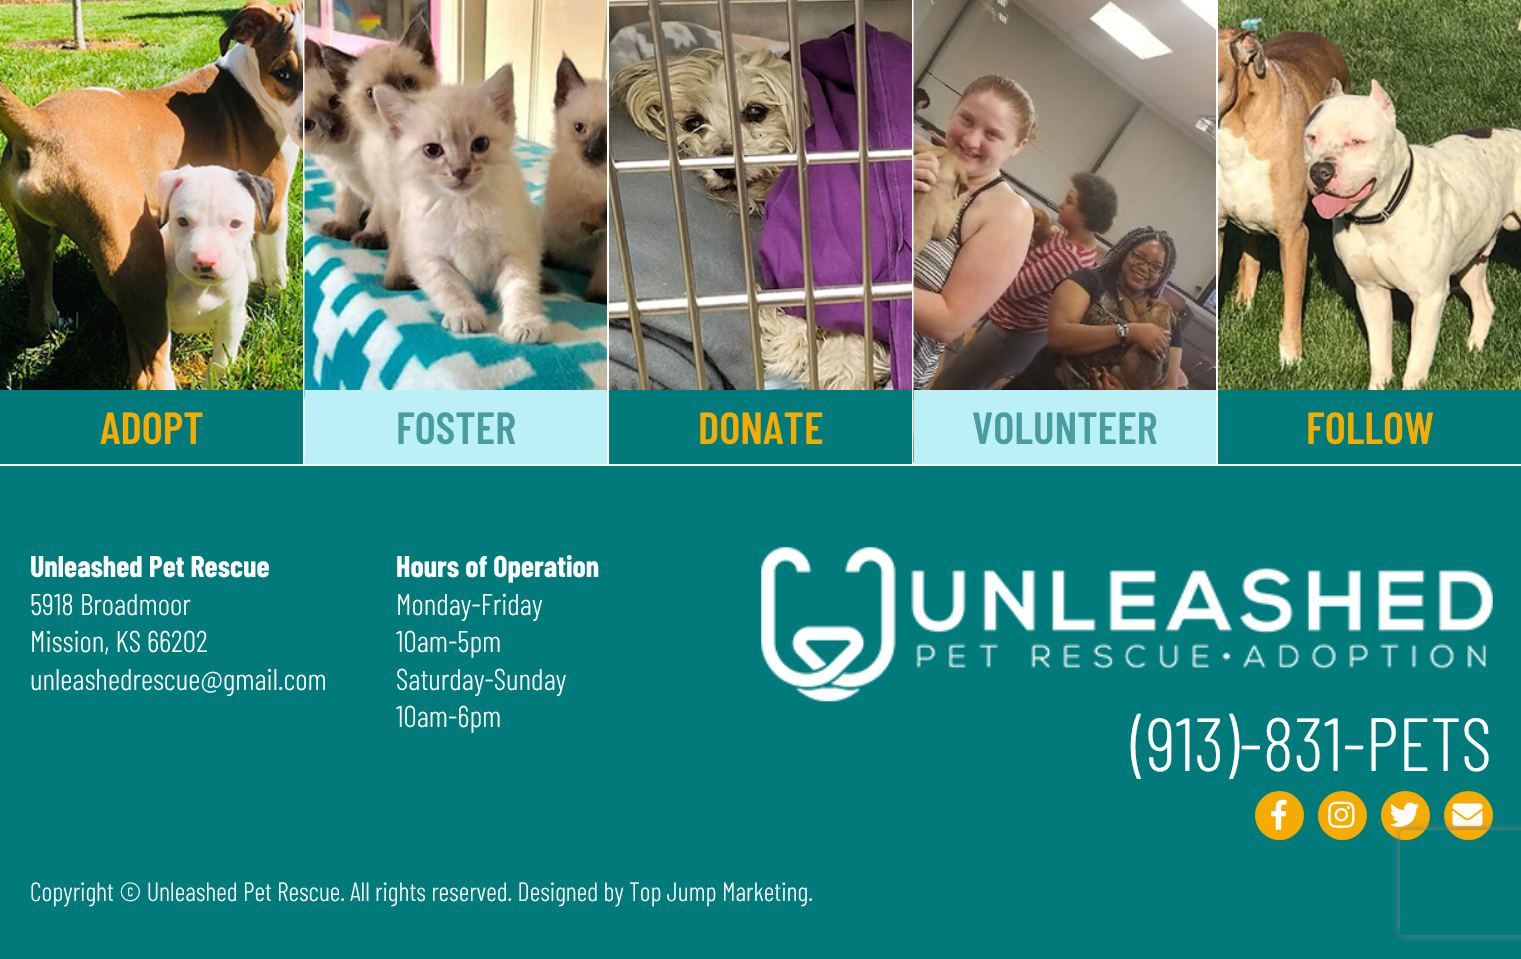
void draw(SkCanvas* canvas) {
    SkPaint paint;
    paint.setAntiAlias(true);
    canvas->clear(0xFF007A7B);
    canvas->drawImageRect(SkImages::DeferredFromEncodedData(SkData::MakeFromFileName("img1.png")), SkRect::MakeXYWH(0, 0, 303, 390), SkSamplingOptions());
    paint.setColor(0xFFFFFFFF);
    canvas->drawRect(SkRect::MakeXYWH(303, 0, 2, 464), paint);
    SkFont font1(fontMgr->matchFamilyStyle("Barlow Condensed", SkFontStyle(600, SkFontStyle::kNormal_Width, SkFontStyle::kUpright_Slant)), 45);
    font1.setSubpixel(true);
    paint.setColor(0xFFF6AB00);
    canvas->drawString("ADOPT", 100, 444, font1, paint);
    canvas->drawImageRect(SkImages::DeferredFromEncodedData(SkData::MakeFromFileName("img2.png")), SkRect::MakeXYWH(304, 0, 303, 464), SkSamplingOptions());
    paint.setColor(0xFFFFFFFF);
    canvas->drawRect(SkRect::MakeXYWH(607, 0, 2, 464), paint);
    paint.setColor(0xFFBBF1F6);
    canvas->drawRect(SkRect::MakeXYWH(305, 390, 302, 74), paint);
    paint.setColor(0xFF499D9F);
    canvas->drawString("FOSTER", 396, 444, font1, paint);
    canvas->drawImageRect(SkImages::DeferredFromEncodedData(SkData::MakeFromFileName("img3.png")), SkRect::MakeXYWH(609, 0, 303, 390), SkSamplingOptions());
    paint.setColor(0xFFFFFFFF);
    canvas->drawRect(SkRect::MakeXYWH(912, 0, 2, 464), paint);
    paint.setColor(0xFFF6AB00);
    canvas->drawString("DONATE", 698, 444, font1, paint);
    canvas->drawImageRect(SkImages::DeferredFromEncodedData(SkData::MakeFromFileName("img4.png")), SkRect::MakeXYWH(913, 0, 303, 464), SkSamplingOptions());
    paint.setColor(0xFFFFFFFF);
    canvas->drawRect(SkRect::MakeXYWH(1216, 0, 2, 464), paint);
    paint.setColor(0xFFBBF1F6);
    canvas->drawRect(SkRect::MakeXYWH(914, 390, 302, 74), paint);
    paint.setColor(0xFF499D9F);
    canvas->drawString("VOLUNTEER", 972, 444, font1, paint);
    canvas->drawImageRect(SkImages::DeferredFromEncodedData(SkData::MakeFromFileName("img5.png")), SkRect::MakeXYWH(1218, 0, 303, 390), SkSamplingOptions());
    paint.setColor(0xFFF6AB00);
    canvas->drawString("FOLLOW", 1306, 444, font1, paint);
    paint.setColor(0xFFFFFFFF);
    canvas->drawRect(SkRect::MakeXYWH(0, 464, 1521, 2), paint);
    SkFont font2(fontMgr->matchFamilyStyle("Barlow Condensed", SkFontStyle::Bold()), 30);
    font2.setSubpixel(true);
    canvas->drawString("Unleashed Pet Rescue", 30, 577, font2, paint);
    SkFont font3(fontMgr->matchFamilyStyle("Barlow Condensed", SkFontStyle(300, SkFontStyle::kNormal_Width, SkFontStyle::kUpright_Slant)), 30);
    font3.setSubpixel(true);
    canvas->drawString("5918 Broadmoor", 30, 615, font3, paint);
    canvas->drawString("Mission, KS 66202", 30, 652, font3, paint);
    canvas->drawString("unleashedrescue@gmail.com", 30, 690, font3, paint);
    canvas->drawString("Hours of Operation", 396, 577, font2, paint);
    canvas->drawString("Monday-Friday", 396, 615, font3, paint);
    canvas->drawString("10am-5pm", 396, 652, font3, paint);
    canvas->drawString("Saturday-Sunday", 396, 690, font3, paint);
    canvas->drawString("10am-6pm", 396, 727, font3, paint);
    canvas->drawImageRect(SkImages::DeferredFromEncodedData(SkData::MakeFromFileName("img6.png")), SkRect::MakeXYWH(761, 547, 732, 155), SkSamplingOptions());
    SkFont font4(fontMgr->matchFamilyStyle("Barlow Condensed", SkFontStyle(300, SkFontStyle::kNormal_Width, SkFontStyle::kUpright_Slant)), 75);
    font4.setSubpixel(true);
    canvas->drawString("(913)-831-PETS", 1131, 771, font4, paint);
    paint.setColor(0xFFF6AB00);
    canvas->drawCircle(1279.5f, 815.5f, 24.5f, paint);
    canvas->drawImageRect(SkImages::DeferredFromEncodedData(SkData::MakeFromFileName("img7.png")), SkRect::MakeXYWH(1271, 799, 16, 31), SkSamplingOptions());
    canvas->drawCircle(1342.5f, 815.5f, 24.5f, paint);
    canvas->drawImageRect(SkImages::DeferredFromEncodedData(SkData::MakeFromFileName("img8.png")), SkRect::MakeXYWH(1328, 801, 27, 27), SkSamplingOptions());
    canvas->drawCircle(1405.5f, 815.5f, 24.5f, paint);
    canvas->drawImageRect(SkImages::DeferredFromEncodedData(SkData::MakeFromFileName("img9.png")), SkRect::MakeXYWH(1389, 802, 31, 25), SkSamplingOptions());
    canvas->drawCircle(1468.5f, 815.5f, 24.5f, paint);
    canvas->drawImageRect(SkImages::DeferredFromEncodedData(SkData::MakeFromFileName("img10.png")), SkRect::MakeXYWH(1452, 803, 31, 23), SkSamplingOptions());
    SkFont font5(fontMgr->matchFamilyStyle("Barlow Condensed", SkFontStyle(300, SkFontStyle::kNormal_Width, SkFontStyle::kUpright_Slant)), 26.25f);
    font5.setSubpixel(true);
    paint.setColor(0xFFFFFFFF);
    canvas->drawString("Copyright © Unleashed Pet Rescue. All rights reserved. Designed by Top Jump Marketing.", 30, 901, font5, paint);
    canvas->save();
    canvas->clipPath(SkPathBuilder(SkPathFillType::kEvenOdd).moveTo(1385, 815).lineTo(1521, 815).lineTo(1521, 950).lineTo(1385, 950).close().moveTo(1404, 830).lineTo(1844, 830).cubicTo(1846, 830, 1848, 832, 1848, 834).lineTo(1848, 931).cubicTo(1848, 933, 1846, 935, 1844, 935).lineTo(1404, 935).cubicTo(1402, 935, 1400, 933, 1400, 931).lineTo(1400, 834).cubicTo(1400, 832, 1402, 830, 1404, 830).close().detach(), true);
    paint.setColor(0xFF808080);
    paint.setMaskFilter(SkMaskFilter::MakeBlur(kNormal_SkBlurStyle, 4.5f));
    canvas->drawRoundRect(SkRect::MakeXYWH(1400, 830, 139, 105), 4, 4, paint);
    paint.setMaskFilter(nullptr);
    canvas->restore();
}
